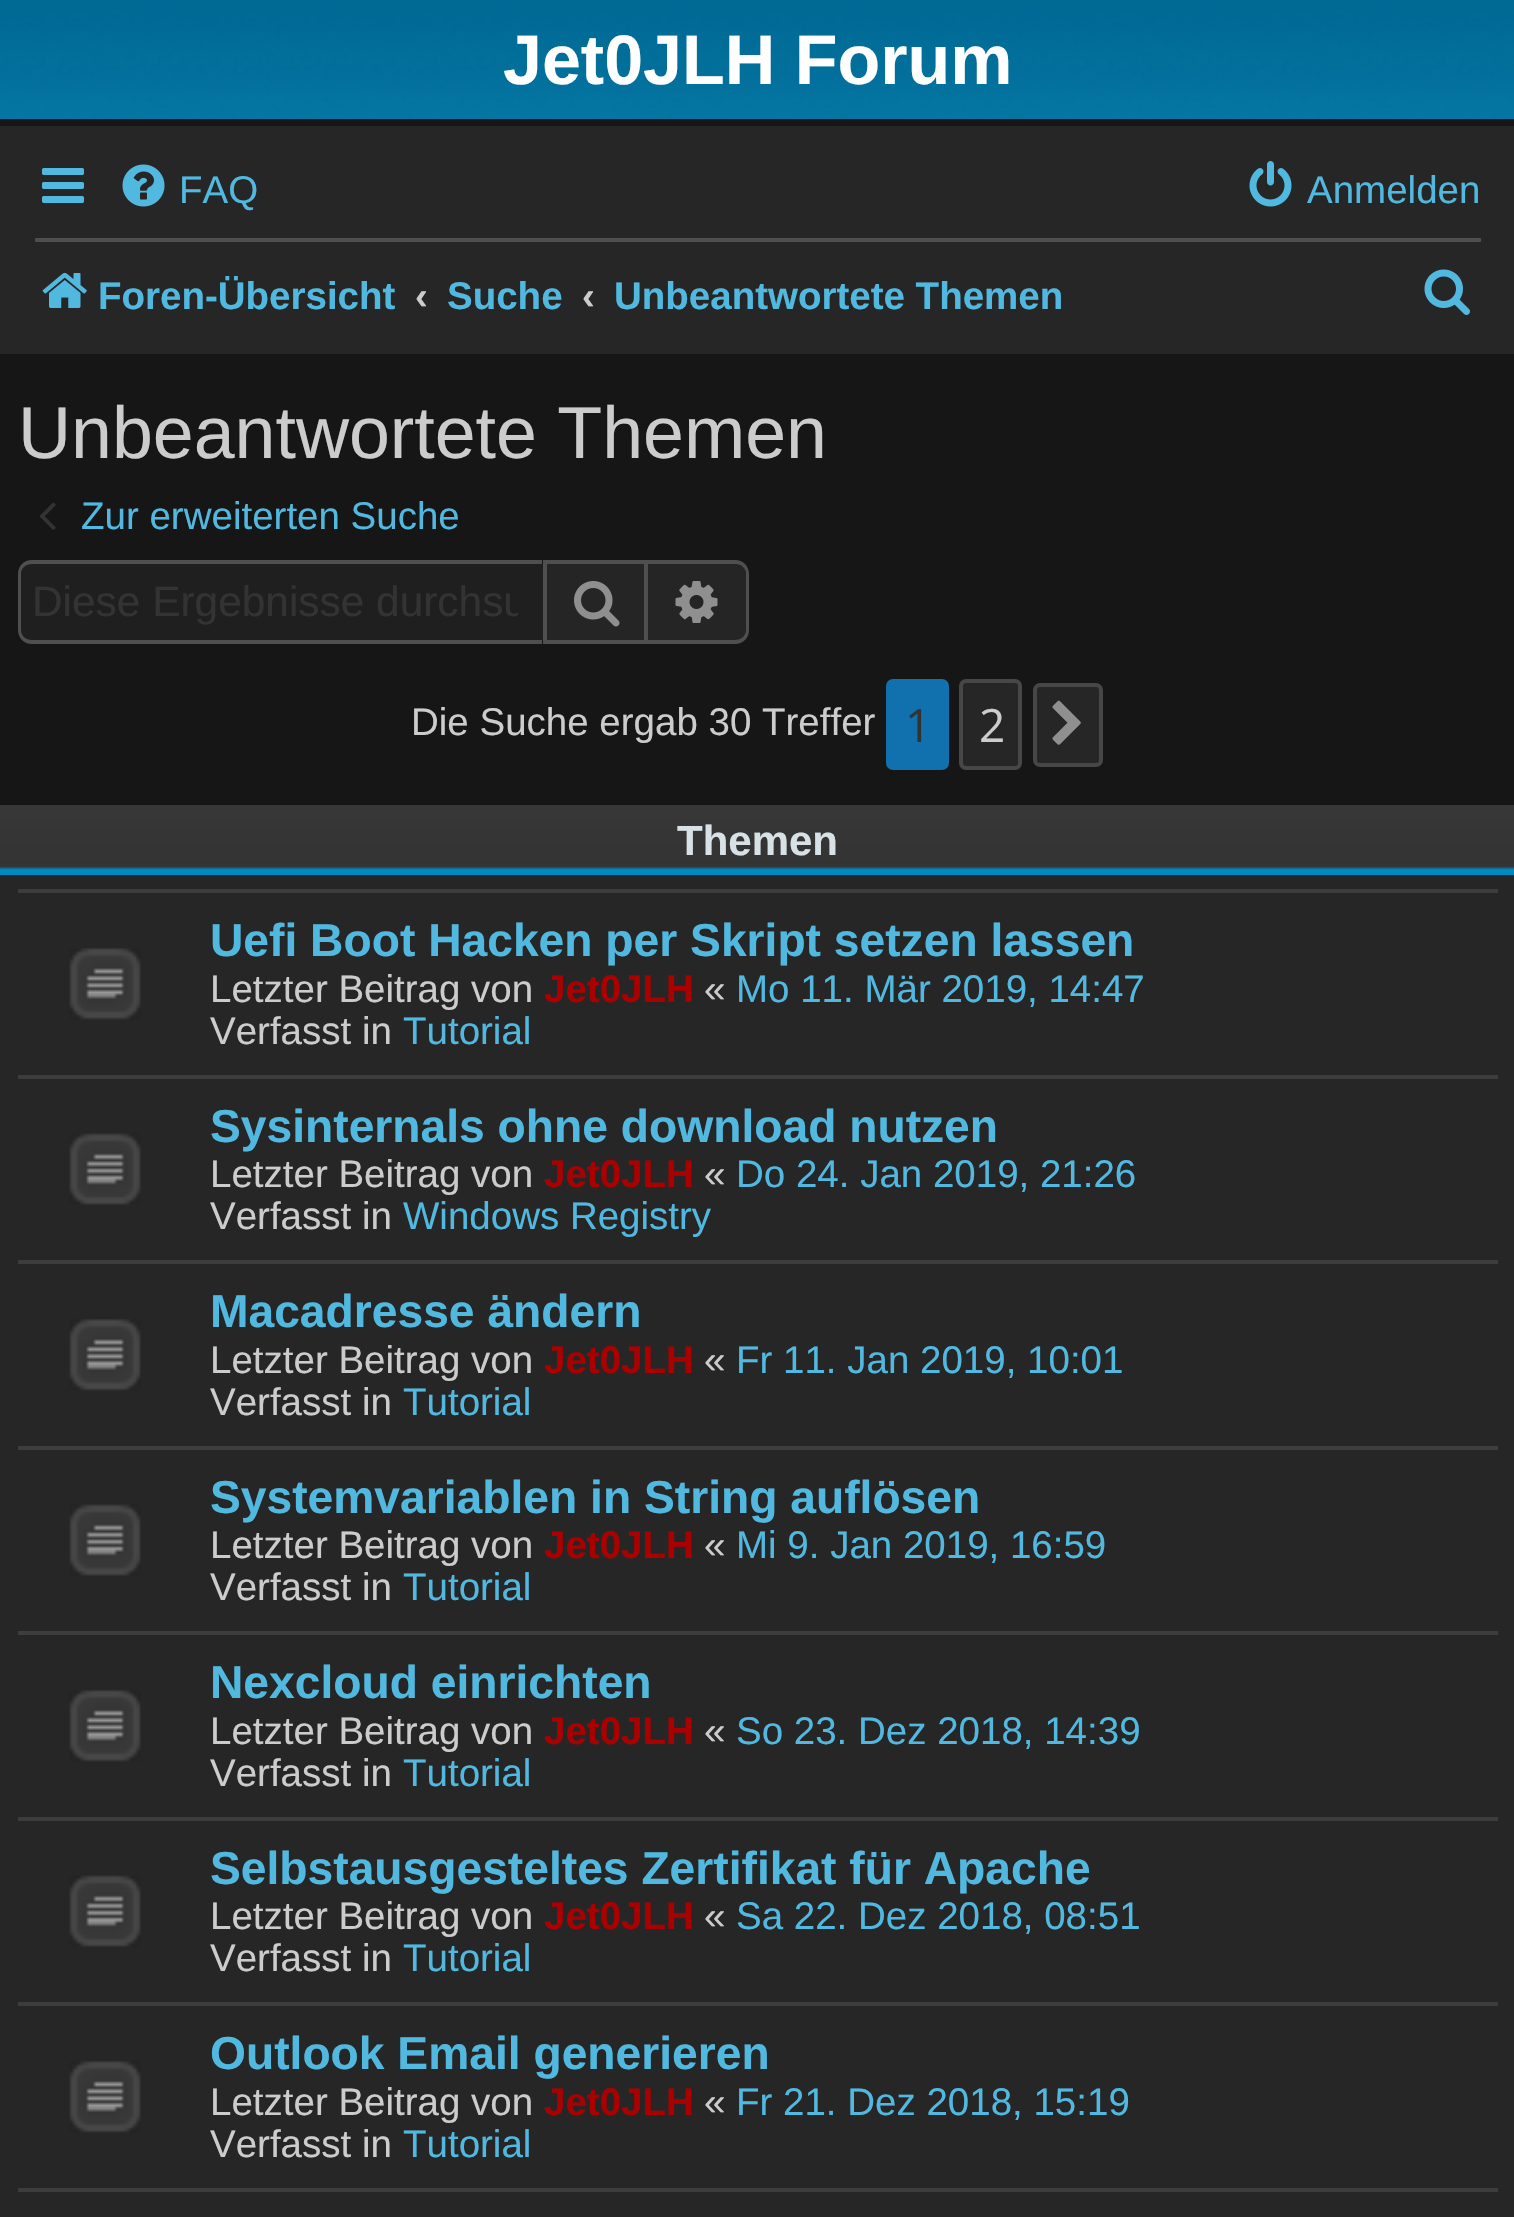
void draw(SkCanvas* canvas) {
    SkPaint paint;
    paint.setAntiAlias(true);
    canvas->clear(0xFF161616);
    canvas->drawImageRect(SkImages::DeferredFromEncodedData(SkData::MakeFromFileName("img1.png")), SkRect::MakeXYWH(0, 0, 1514, 119), SkSamplingOptions());
    SkFont font1(fontMgr->matchFamilyStyle("Liberation Sans", SkFontStyle::Bold()), 70);
    font1.setSubpixel(true);
    paint.setColor(0xFFFFFFFF);
    canvas->drawString("Jet0JLH Forum", 503, 84, font1, paint);
    paint.setColor(0xFF262626);
    canvas->drawRect(SkRect::MakeXYWH(0, 126, 1514, 228), paint);
    canvas->drawImageRect(SkImages::DeferredFromEncodedData(SkData::MakeFromFileName("img2.png")), SkRect::MakeXYWH(42, 168, 42, 35), SkSamplingOptions());
    canvas->drawImageRect(SkImages::DeferredFromEncodedData(SkData::MakeFromFileName("img3.png")), SkRect::MakeXYWH(122, 164, 43, 43), SkSamplingOptions());
    SkFont font2(fontMgr->matchFamilyStyle("Liberation Sans", SkFontStyle::Normal()), 38.5f);
    font2.setSubpixel(true);
    paint.setColor(0xFF51B8E0);
    canvas->drawString("FAQ", 179, 203, font2, paint);
    canvas->drawImageRect(SkImages::DeferredFromEncodedData(SkData::MakeFromFileName("img4.png")), SkRect::MakeXYWH(1249, 161, 43, 46), SkSamplingOptions());
    canvas->drawString("Anmelden", 1307, 203, font2, paint);
    paint.setColor(0xFF4F4F4F);
    canvas->drawRect(SkRect::MakeXYWH(35, 238, 1446, 4), paint);
    canvas->drawImageRect(SkImages::DeferredFromEncodedData(SkData::MakeFromFileName("img5.png")), SkRect::MakeXYWH(42, 272, 45, 36), SkSamplingOptions());
    SkFont font3(fontMgr->matchFamilyStyle("Liberation Sans", SkFontStyle::Bold()), 38.5f);
    font3.setSubpixel(true);
    paint.setColor(0xFF51B8E0);
    canvas->drawString("Foren-Übersicht", 98, 309, font3, paint);
    paint.setColor(0xFFCCCCCC);
    canvas->drawString("‹", 415, 309, font3, paint);
    paint.setColor(0xFF51B8E0);
    canvas->drawString("Suche", 447, 309, font3, paint);
    paint.setColor(0xFFCCCCCC);
    canvas->drawString("‹", 582, 309, font3, paint);
    paint.setColor(0xFF51B8E0);
    canvas->drawString("Unbeantwortete Themen", 614, 309, font3, paint);
    canvas->drawImageRect(SkImages::DeferredFromEncodedData(SkData::MakeFromFileName("img6.png")), SkRect::MakeXYWH(1424, 269, 46, 46), SkSamplingOptions());
    SkFont font4(fontMgr->matchFamilyStyle("Liberation Sans", SkFontStyle::Normal()), 73.5f);
    font4.setSubpixel(true);
    paint.setColor(0xFFCCCCCC);
    canvas->drawString("Unbeantwortete Themen", 18, 458, font4, paint);
    canvas->drawImageRect(SkImages::DeferredFromEncodedData(SkData::MakeFromFileName("img7.png")), SkRect::MakeXYWH(40, 502, 16, 28), SkSamplingOptions());
    paint.setColor(0xFF51B8E0);
    canvas->drawString("Zur erweiterten Suche", 81, 529, font2, paint);
    paint.setColor(0xFF1F1F1F);
    canvas->drawPath(SkPathBuilder().moveTo(32, 564).lineTo(543, 564).lineTo(543, 641).lineTo(32, 641).cubicTo(26, 641, 21, 636, 21, 630).lineTo(21, 575).cubicTo(21, 569, 26, 564, 32, 564).close().detach(), paint);
    paint.setColor(0xFF4F4F4F);
    canvas->drawPath(SkPathBuilder(SkPathFillType::kEvenOdd).moveTo(32, 560).lineTo(542, 560).lineTo(542, 644).lineTo(32, 644).cubicTo(24, 644, 18, 638, 18, 630).lineTo(18, 574).cubicTo(18, 566, 24, 560, 32, 560).close().moveTo(32, 564).lineTo(542, 564).lineTo(542, 640).lineTo(32, 640).cubicTo(26, 640, 21, 636, 21, 630).lineTo(21, 574).cubicTo(21, 568, 26, 564, 32, 564).close().detach(), paint);
    canvas->save();
    canvas->clipRect(SkRect::MakeXYWH(32, 578, 486, 49));
    SkFont font5(fontMgr->matchFamilyStyle("Liberation Sans", SkFontStyle::Normal()), 42.4f);
    font5.setSubpixel(true);
    paint.setColor(0xFF333333);
    canvas->drawString("Diese Ergebnisse durchsu", 32, 616, font5, paint);
    canvas->restore();
    paint.setColor(0xFF252525);
    canvas->drawRect(SkRect::MakeXYWH(545, 562, 101, 80), paint);
    paint.setStyle(SkPaint::kStroke_Style);
    paint.setStrokeWidth(4);
    paint.setColor(0xFF4F4F4F);
    canvas->drawRect(SkRect::MakeXYWH(545, 562, 101, 80), paint);
    canvas->drawImageRect(SkImages::DeferredFromEncodedData(SkData::MakeFromFileName("img8.png")), SkRect::MakeXYWH(574, 581, 46, 46), SkSamplingOptions());
    paint.setStyle(SkPaint::kFill_Style);
    paint.setColor(0xFF252525);
    canvas->drawPath(SkPathBuilder().moveTo(648, 564).lineTo(735, 564).cubicTo(741, 564, 746, 569, 746, 575).lineTo(746, 630).cubicTo(746, 636, 741, 641, 735, 641).lineTo(648, 641).close().detach(), paint);
    paint.setColor(0xFF4F4F4F);
    canvas->drawPath(SkPathBuilder(SkPathFillType::kEvenOdd).moveTo(648, 560).lineTo(735, 560).cubicTo(743, 560, 749, 566, 749, 574).lineTo(749, 630).cubicTo(749, 638, 743, 644, 735, 644).lineTo(648, 644).close().moveTo(648, 564).lineTo(735, 564).cubicTo(741, 564, 746, 568, 746, 574).lineTo(746, 630).cubicTo(746, 636, 741, 640, 735, 640).lineTo(648, 640).close().detach(), paint);
    canvas->drawImageRect(SkImages::DeferredFromEncodedData(SkData::MakeFromFileName("img9.png")), SkRect::MakeXYWH(675, 581, 43, 42), SkSamplingOptions());
    paint.setColor(0xFFCCCCCC);
    canvas->drawString("Die Suche ergab 30 Treffer", 411, 735, font2, paint);
    paint.setColor(0xFF1170AE);
    canvas->drawRoundRect(SkRect::MakeXYWH(888, 681, 59, 87), 5, 5, paint);
    paint.setStyle(SkPaint::kStroke_Style);
    canvas->drawRoundRect(SkRect::MakeXYWH(888, 681, 59, 87), 5, 5, paint);
    SkFont font6(fontMgr->matchFamilyStyle("Open Sans", SkFontStyle::Normal()), 46);
    font6.setSubpixel(true);
    paint.setStyle(SkPaint::kFill_Style);
    paint.setColor(0xFF333333);
    canvas->drawString("1", 905, 742, font6, paint);
    paint.setColor(0xFF262626);
    canvas->drawRoundRect(SkRect::MakeXYWH(961, 681, 59, 87), 5, 5, paint);
    paint.setStyle(SkPaint::kStroke_Style);
    paint.setColor(0xFF474747);
    canvas->drawRoundRect(SkRect::MakeXYWH(961, 681, 59, 87), 5, 5, paint);
    paint.setStyle(SkPaint::kFill_Style);
    paint.setColor(0xFFCCCCCC);
    canvas->drawString("2", 979, 742, font6, paint);
    paint.setColor(0xFF262626);
    canvas->drawRoundRect(SkRect::MakeXYWH(1035, 685, 66, 80), 5, 5, paint);
    paint.setStyle(SkPaint::kStroke_Style);
    paint.setColor(0xFF474747);
    canvas->drawRoundRect(SkRect::MakeXYWH(1035, 685, 66, 80), 5, 5, paint);
    canvas->drawImageRect(SkImages::DeferredFromEncodedData(SkData::MakeFromFileName("img10.png")), SkRect::MakeXYWH(1052, 700, 29, 45), SkSamplingOptions());
    paint.setStyle(SkPaint::kFill_Style);
    paint.setColor(0xFF262626);
    canvas->drawRect(SkRect::MakeXYWH(0, 875, 1514, 1342), paint);
    canvas->drawImageRect(SkImages::DeferredFromEncodedData(SkData::MakeFromFileName("img11.png")), SkRect::MakeXYWH(0, 805, 1514, 70), SkSamplingOptions());
    SkFont font7(fontMgr->matchFamilyStyle("Liberation Sans", SkFontStyle::Bold()), 42);
    font7.setSubpixel(true);
    paint.setColor(0xFFD8E2E6);
    canvas->drawString("Themen", 677, 855, font7, paint);
    paint.setColor(0xFF3D3D3D);
    canvas->drawRect(SkRect::MakeXYWH(18, 889, 1480, 4), paint);
    canvas->drawImageRect(SkImages::DeferredFromEncodedData(SkData::MakeFromFileName("img12.png")), SkRect::MakeXYWH(69, 948, 72, 72), SkSamplingOptions());
    SkFont font8(fontMgr->matchFamilyStyle("Liberation Sans", SkFontStyle::Bold()), 46.2f);
    font8.setSubpixel(true);
    paint.setColor(0xFF51B8E0);
    canvas->drawString("Uefi Boot Hacken per Skript setzen lassen", 210, 956, font8, paint);
    paint.setColor(0xFFCCCCCC);
    canvas->drawString("Letzter Beitrag von", 210, 1002, font2, paint);
    paint.setColor(0xFFAA0000);
    canvas->drawString("Jet0JLH", 544, 1002, font3, paint);
    paint.setColor(0xFFCCCCCC);
    canvas->drawString("«", 704, 1002, font2, paint);
    paint.setColor(0xFF51B8E0);
    canvas->drawString("Mo 11. Mär 2019, 14:47", 736, 1002, font2, paint);
    paint.setColor(0xFFCCCCCC);
    canvas->drawString("Verfasst in", 210, 1044, font2, paint);
    paint.setColor(0xFF51B8E0);
    canvas->drawString("Tutorial", 403, 1044, font2, paint);
    paint.setColor(0xFF3D3D3D);
    canvas->drawRect(SkRect::MakeXYWH(18, 1075, 1480, 4), paint);
    canvas->drawImageRect(SkImages::DeferredFromEncodedData(SkData::MakeFromFileName("img13.png")), SkRect::MakeXYWH(69, 1133, 72, 72), SkSamplingOptions());
    paint.setColor(0xFF51B8E0);
    canvas->drawString("Sysinternals ohne download nutzen", 210, 1142, font8, paint);
    paint.setColor(0xFFCCCCCC);
    canvas->drawString("Letzter Beitrag von", 210, 1187, font2, paint);
    paint.setColor(0xFFAA0000);
    canvas->drawString("Jet0JLH", 544, 1187, font3, paint);
    paint.setColor(0xFFCCCCCC);
    canvas->drawString("«", 704, 1187, font2, paint);
    paint.setColor(0xFF51B8E0);
    canvas->drawString("Do 24. Jan 2019, 21:26", 736, 1187, font2, paint);
    paint.setColor(0xFFCCCCCC);
    canvas->drawString("Verfasst in", 210, 1229, font2, paint);
    paint.setColor(0xFF51B8E0);
    canvas->drawString("Windows Registry", 403, 1229, font2, paint);
    paint.setColor(0xFF3D3D3D);
    canvas->drawRect(SkRect::MakeXYWH(18, 1260, 1480, 4), paint);
    canvas->drawImageRect(SkImages::DeferredFromEncodedData(SkData::MakeFromFileName("img12.png")), SkRect::MakeXYWH(69, 1319, 72, 72), SkSamplingOptions());
    paint.setColor(0xFF51B8E0);
    canvas->drawString("Macadresse ändern", 210, 1327, font8, paint);
    paint.setColor(0xFFCCCCCC);
    canvas->drawString("Letzter Beitrag von", 210, 1373, font2, paint);
    paint.setColor(0xFFAA0000);
    canvas->drawString("Jet0JLH", 544, 1373, font3, paint);
    paint.setColor(0xFFCCCCCC);
    canvas->drawString("«", 704, 1373, font2, paint);
    paint.setColor(0xFF51B8E0);
    canvas->drawString("Fr 11. Jan 2019, 10:01", 736, 1373, font2, paint);
    paint.setColor(0xFFCCCCCC);
    canvas->drawString("Verfasst in", 210, 1415, font2, paint);
    paint.setColor(0xFF51B8E0);
    canvas->drawString("Tutorial", 403, 1415, font2, paint);
    paint.setColor(0xFF3D3D3D);
    canvas->drawRect(SkRect::MakeXYWH(18, 1446, 1480, 4), paint);
    canvas->drawImageRect(SkImages::DeferredFromEncodedData(SkData::MakeFromFileName("img13.png")), SkRect::MakeXYWH(69, 1504, 72, 72), SkSamplingOptions());
    paint.setColor(0xFF51B8E0);
    canvas->drawString("Systemvariablen in String auflösen", 210, 1513, font8, paint);
    paint.setColor(0xFFCCCCCC);
    canvas->drawString("Letzter Beitrag von", 210, 1558, font2, paint);
    paint.setColor(0xFFAA0000);
    canvas->drawString("Jet0JLH", 544, 1558, font3, paint);
    paint.setColor(0xFFCCCCCC);
    canvas->drawString("«", 704, 1558, font2, paint);
    paint.setColor(0xFF51B8E0);
    canvas->drawString("Mi 9. Jan 2019, 16:59", 736, 1558, font2, paint);
    paint.setColor(0xFFCCCCCC);
    canvas->drawString("Verfasst in", 210, 1600, font2, paint);
    paint.setColor(0xFF51B8E0);
    canvas->drawString("Tutorial", 403, 1600, font2, paint);
    paint.setColor(0xFF3D3D3D);
    canvas->drawRect(SkRect::MakeXYWH(18, 1631, 1480, 4), paint);
    canvas->drawImageRect(SkImages::DeferredFromEncodedData(SkData::MakeFromFileName("img12.png")), SkRect::MakeXYWH(69, 1690, 72, 72), SkSamplingOptions());
    paint.setColor(0xFF51B8E0);
    canvas->drawString("Nexcloud einrichten", 210, 1698, font8, paint);
    paint.setColor(0xFFCCCCCC);
    canvas->drawString("Letzter Beitrag von", 210, 1744, font2, paint);
    paint.setColor(0xFFAA0000);
    canvas->drawString("Jet0JLH", 544, 1744, font3, paint);
    paint.setColor(0xFFCCCCCC);
    canvas->drawString("«", 704, 1744, font2, paint);
    paint.setColor(0xFF51B8E0);
    canvas->drawString("So 23. Dez 2018, 14:39", 736, 1744, font2, paint);
    paint.setColor(0xFFCCCCCC);
    canvas->drawString("Verfasst in", 210, 1786, font2, paint);
    paint.setColor(0xFF51B8E0);
    canvas->drawString("Tutorial", 403, 1786, font2, paint);
    paint.setColor(0xFF3D3D3D);
    canvas->drawRect(SkRect::MakeXYWH(18, 1817, 1480, 4), paint);
    canvas->drawImageRect(SkImages::DeferredFromEncodedData(SkData::MakeFromFileName("img14.png")), SkRect::MakeXYWH(69, 1875, 72, 72), SkSamplingOptions());
    paint.setColor(0xFF51B8E0);
    canvas->drawString("Selbstausgesteltes Zertifikat für Apache", 210, 1884, font8, paint);
    paint.setColor(0xFFCCCCCC);
    canvas->drawString("Letzter Beitrag von", 210, 1929, font2, paint);
    paint.setColor(0xFFAA0000);
    canvas->drawString("Jet0JLH", 544, 1929, font3, paint);
    paint.setColor(0xFFCCCCCC);
    canvas->drawString("«", 704, 1929, font2, paint);
    paint.setColor(0xFF51B8E0);
    canvas->drawString("Sa 22. Dez 2018, 08:51", 736, 1929, font2, paint);
    paint.setColor(0xFFCCCCCC);
    canvas->drawString("Verfasst in", 210, 1971, font2, paint);
    paint.setColor(0xFF51B8E0);
    canvas->drawString("Tutorial", 403, 1971, font2, paint);
    paint.setColor(0xFF3D3D3D);
    canvas->drawRect(SkRect::MakeXYWH(18, 2002, 1480, 4), paint);
    canvas->drawImageRect(SkImages::DeferredFromEncodedData(SkData::MakeFromFileName("img12.png")), SkRect::MakeXYWH(69, 2061, 72, 72), SkSamplingOptions());
    paint.setColor(0xFF51B8E0);
    canvas->drawString("Outlook Email generieren", 210, 2069, font8, paint);
    paint.setColor(0xFFCCCCCC);
    canvas->drawString("Letzter Beitrag von", 210, 2115, font2, paint);
    paint.setColor(0xFFAA0000);
    canvas->drawString("Jet0JLH", 544, 2115, font3, paint);
    paint.setColor(0xFFCCCCCC);
    canvas->drawString("«", 704, 2115, font2, paint);
    paint.setColor(0xFF51B8E0);
    canvas->drawString("Fr 21. Dez 2018, 15:19", 736, 2115, font2, paint);
    paint.setColor(0xFFCCCCCC);
    canvas->drawString("Verfasst in", 210, 2157, font2, paint);
    paint.setColor(0xFF51B8E0);
    canvas->drawString("Tutorial", 403, 2157, font2, paint);
    paint.setColor(0xFF3D3D3D);
    canvas->drawRect(SkRect::MakeXYWH(18, 2188, 1480, 4), paint);
}
